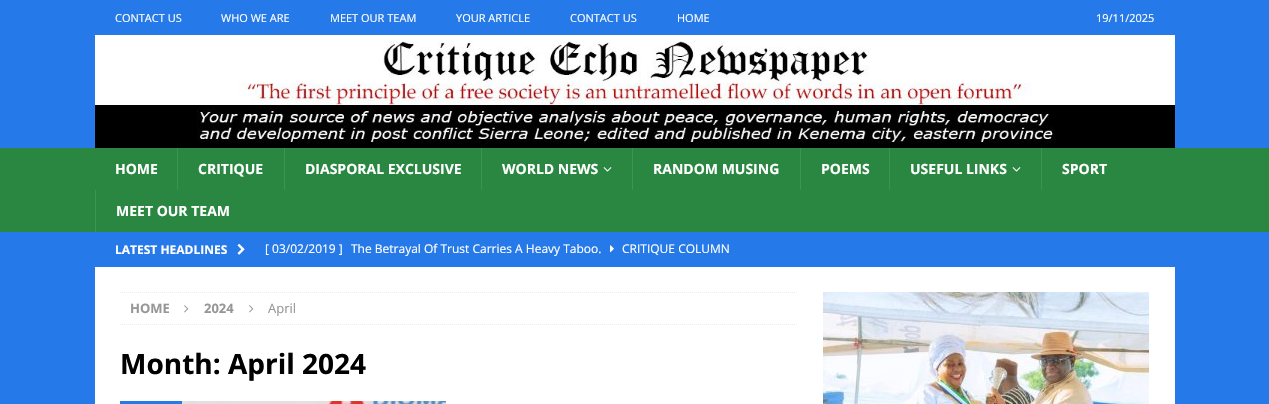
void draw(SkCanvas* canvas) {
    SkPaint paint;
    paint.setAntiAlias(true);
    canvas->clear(0xFF2579E8);
    SkFont font1(fontMgr->matchFamilyStyle("Open Sans", SkFontStyle::Normal()), 11);
    font1.setSubpixel(true);
    paint.setColor(0xFFFFFFFF);
    canvas->drawString("CONTACT US", 115, 22, font1, paint);
    canvas->drawString("WHO WE ARE", 221, 22, font1, paint);
    canvas->drawString("MEET OUR TEAM", 330, 22, font1, paint);
    canvas->drawString("YOUR ARTICLE", 456, 22, font1, paint);
    canvas->drawString("CONTACT US", 570, 22, font1, paint);
    canvas->drawString("HOME", 677, 22, font1, paint);
    canvas->drawString("19/11/2025", 1096, 22, font1, paint);
    canvas->drawImageRect(SkImages::DeferredFromEncodedData(SkData::MakeFromFileName("img1.png")), SkRect::MakeXYWH(95, 35, 1080, 113), SkSamplingOptions());
    paint.setColor(0xFF298741);
    canvas->drawRect(SkRect::MakeXYWH(0, 148, 1269, 84), paint);
    SkFont font2(fontMgr->matchFamilyStyle("Open Sans", SkFontStyle::Bold()), 14);
    font2.setSubpixel(true);
    paint.setColor(0xFFFFFFFF);
    canvas->drawString("HOME", 115, 174, font2, paint);
    paint.setColor(0xFF3E9354);
    canvas->drawRect(SkRect::MakeXYWH(177, 148, 1, 42), paint);
    paint.setColor(0xFFFFFFFF);
    canvas->drawString("CRITIQUE", 198, 174, font2, paint);
    paint.setColor(0xFF3E9354);
    canvas->drawRect(SkRect::MakeXYWH(284, 148, 1, 42), paint);
    paint.setColor(0xFFFFFFFF);
    canvas->drawString("DIASPORAL EXCLUSIVE", 305, 174, font2, paint);
    paint.setColor(0xFF3E9354);
    canvas->drawRect(SkRect::MakeXYWH(481, 148, 1, 42), paint);
    paint.setColor(0xFFFFFFFF);
    canvas->drawString("WORLD NEWS", 502, 174, font2, paint);
    canvas->drawImageRect(SkImages::DeferredFromEncodedData(SkData::MakeFromFileName("img2.png")), SkRect::MakeXYWH(603, 167, 9, 5), SkSamplingOptions());
    paint.setColor(0xFF3E9354);
    canvas->drawRect(SkRect::MakeXYWH(632, 148, 1, 42), paint);
    paint.setColor(0xFFFFFFFF);
    canvas->drawString("RANDOM MUSING", 653, 174, font2, paint);
    paint.setColor(0xFF3E9354);
    canvas->drawRect(SkRect::MakeXYWH(800, 148, 1, 42), paint);
    paint.setColor(0xFFFFFFFF);
    canvas->drawString("POEMS", 821, 174, font2, paint);
    paint.setColor(0xFF3E9354);
    canvas->drawRect(SkRect::MakeXYWH(889, 148, 1, 42), paint);
    paint.setColor(0xFFFFFFFF);
    canvas->drawString("USEFUL LINKS", 910, 174, font2, paint);
    canvas->drawImageRect(SkImages::DeferredFromEncodedData(SkData::MakeFromFileName("img2.png")), SkRect::MakeXYWH(1012, 167, 9, 5), SkSamplingOptions());
    paint.setColor(0xFF3E9354);
    canvas->drawRect(SkRect::MakeXYWH(1041, 148, 1, 42), paint);
    paint.setColor(0xFFFFFFFF);
    canvas->drawString("SPORT", 1062, 174, font2, paint);
    paint.setColor(0xFF3E9354);
    canvas->drawRect(SkRect::MakeXYWH(95, 190, 1, 42), paint);
    paint.setColor(0xFFFFFFFF);
    canvas->drawString("MEET OUR TEAM", 116, 216, font2, paint);
    SkFont font3(fontMgr->matchFamilyStyle("Open Sans", SkFontStyle::Bold()), 12);
    font3.setSubpixel(true);
    canvas->drawString("LATEST HEADLINES", 115, 254, font3, paint);
    canvas->drawImageRect(SkImages::DeferredFromEncodedData(SkData::MakeFromFileName("img3.png")), SkRect::MakeXYWH(237, 243, 8, 12), SkSamplingOptions());
    SkFont font4(fontMgr->matchFamilyStyle("Open Sans", SkFontStyle::Normal()), 12);
    font4.setSubpixel(true);
    canvas->drawString("[ 03/02/2019 ]", 265, 253, font4, paint);
    canvas->drawString("The Betrayal Of Trust Carries A Heavy Taboo.", 351, 253, font4, paint);
    canvas->drawImageRect(SkImages::DeferredFromEncodedData(SkData::MakeFromFileName("img4.png")), SkRect::MakeXYWH(610, 245, 4, 8), SkSamplingOptions());
    canvas->drawString("CRITIQUE COLUMN", 622, 253, font4, paint);
    canvas->drawRect(SkRect::MakeXYWH(95, 267, 1080, 137), paint);
    paint.setStyle(SkPaint::kStroke_Style);
    paint.setStrokeWidth(1);
    paint.setColor(0xFFEBEBEB);
    paint.setPathEffect(SkDashPathEffect::Make({{1, 1}}, 0));
    canvas->drawPath(SkPathBuilder().moveTo(120, 292.5f).lineTo(798, 292.5f).detach(), paint);
    paint.setPathEffect(nullptr);
    paint.setPathEffect(SkDashPathEffect::Make({{1, 1}}, 0));
    canvas->drawPath(SkPathBuilder().moveTo(120, 324.5f).lineTo(798, 324.5f).detach(), paint);
    paint.setPathEffect(nullptr);
    SkFont font5(fontMgr->matchFamilyStyle("Open Sans", SkFontStyle::Bold()), 13);
    font5.setSubpixel(true);
    paint.setStyle(SkPaint::kFill_Style);
    paint.setColor(0xFF979797);
    canvas->drawString("HOME", 130, 313, font5, paint);
    canvas->drawImageRect(SkImages::DeferredFromEncodedData(SkData::MakeFromFileName("img5.png")), SkRect::MakeXYWH(184, 305, 5, 8), SkSamplingOptions());
    canvas->drawString("2024", 204, 313, font5, paint);
    canvas->drawImageRect(SkImages::DeferredFromEncodedData(SkData::MakeFromFileName("img5.png")), SkRect::MakeXYWH(249, 305, 5, 8), SkSamplingOptions());
    SkFont font6(fontMgr->matchFamilyStyle("Open Sans", SkFontStyle::Normal()), 13);
    font6.setSubpixel(true);
    canvas->drawString("April", 268, 313, font6, paint);
    SkFont font7(fontMgr->matchFamilyStyle("Open Sans", SkFontStyle::Bold()), 28);
    font7.setSubpixel(true);
    paint.setColor(0xFF000000);
    canvas->drawString("Month: April 2024", 120, 374, font7, paint);
    paint.setColor(0xFF2579E8);
    canvas->drawRect(SkRect::MakeXYWH(120, 401, 62, 3), paint);
    canvas->drawImageRect(SkImages::DeferredFromEncodedData(SkData::MakeFromFileName("img6.png")), SkRect::MakeXYWH(182, 401, 264, 3), SkSamplingOptions());
    canvas->drawImageRect(SkImages::DeferredFromEncodedData(SkData::MakeFromFileName("img7.png")), SkRect::MakeXYWH(823, 292, 326, 112), SkSamplingOptions());
}
